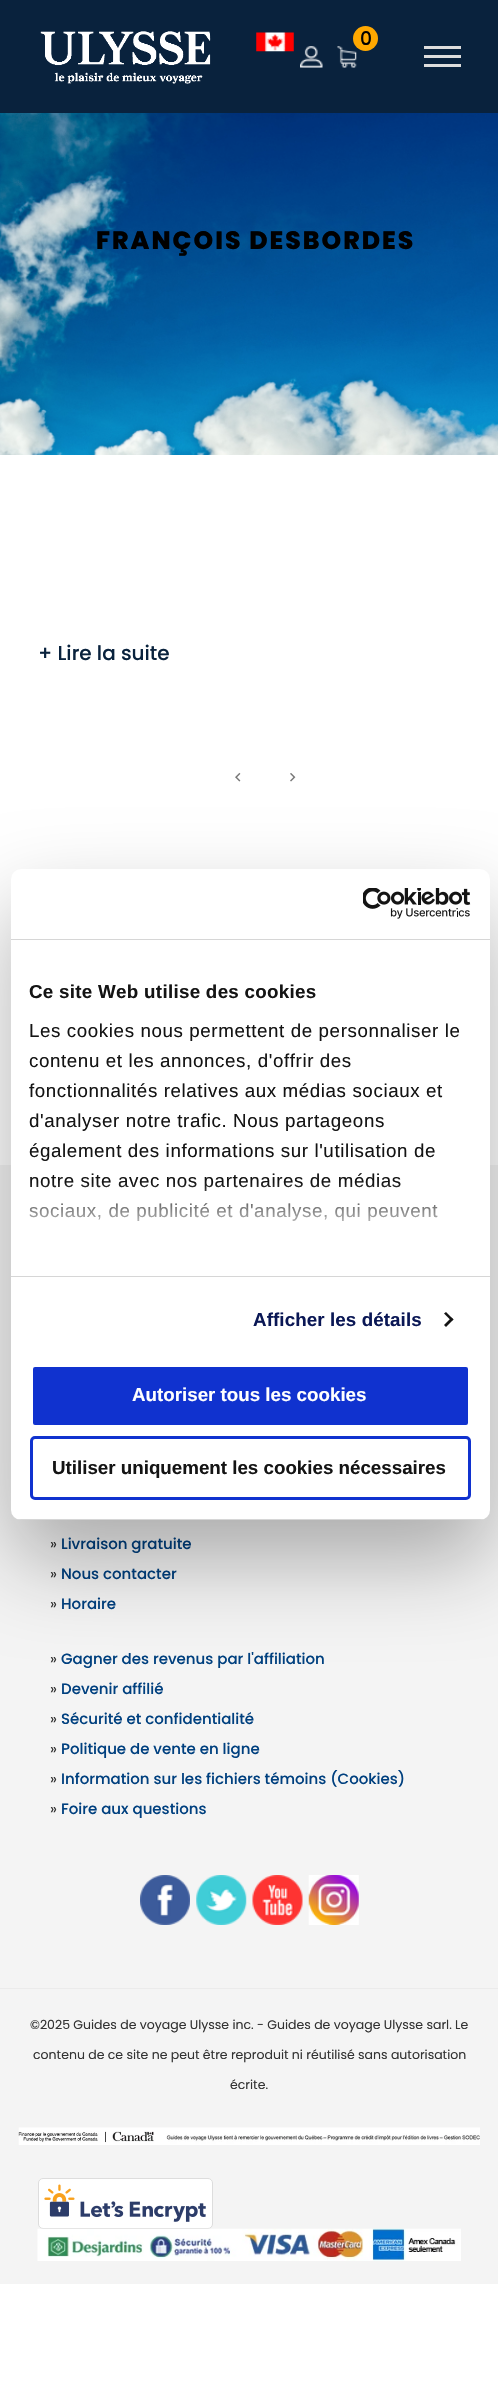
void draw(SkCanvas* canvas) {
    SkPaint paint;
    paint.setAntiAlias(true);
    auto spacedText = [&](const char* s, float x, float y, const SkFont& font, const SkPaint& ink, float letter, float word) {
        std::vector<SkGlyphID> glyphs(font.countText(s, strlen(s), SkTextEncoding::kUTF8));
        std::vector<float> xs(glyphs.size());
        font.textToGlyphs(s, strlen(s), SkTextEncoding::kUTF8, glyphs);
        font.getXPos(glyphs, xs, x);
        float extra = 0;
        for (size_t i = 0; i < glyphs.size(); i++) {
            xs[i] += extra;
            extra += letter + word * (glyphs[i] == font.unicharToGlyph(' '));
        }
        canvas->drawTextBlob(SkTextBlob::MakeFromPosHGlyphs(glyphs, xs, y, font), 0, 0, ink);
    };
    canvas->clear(0xFFFFFFFF);
    paint.setColor(0xFF09223D);
    canvas->drawRect(SkRect::MakeXYWH(0, 0, 498, 113), paint);
    canvas->drawImageRect(SkImages::DeferredFromEncodedData(SkData::MakeFromFileName("img1.png")), SkRect::MakeXYWH(40, 31, 171, 53), SkSamplingOptions());
    canvas->drawImageRect(SkImages::DeferredFromEncodedData(SkData::MakeFromFileName("img2.png")), SkRect::MakeXYWH(256, 32, 38, 20), SkSamplingOptions());
    canvas->drawImageRect(SkImages::DeferredFromEncodedData(SkData::MakeFromFileName("img3.png")), SkRect::MakeXYWH(337, 46, 20, 22), SkSamplingOptions());
    paint.setColor(0xFFFFA800);
    canvas->drawCircle(365.5f, 38.5f, 12.5f, paint);
    SkFont font1(fontMgr->matchFamilyStyle("Poppins", SkFontStyle(500, SkFontStyle::kNormal_Width, SkFontStyle::kUpright_Slant)), 18.75f);
    font1.setSubpixel(true);
    paint.setColor(0xFF000000);
    canvas->drawString("0", 360, 45, font1, paint);
    canvas->drawImageRect(SkImages::DeferredFromEncodedData(SkData::MakeFromFileName("img4.png")), SkRect::MakeXYWH(300, 46, 23, 22), SkSamplingOptions());
    paint.setColor(0xFFDDDDDD);
    canvas->drawRect(SkRect::MakeXYWH(424, 46, 37, 3), paint);
    canvas->drawRect(SkRect::MakeXYWH(424, 55, 37, 3), paint);
    canvas->drawRect(SkRect::MakeXYWH(424, 64, 37, 3), paint);
    canvas->drawImageRect(SkImages::DeferredFromEncodedData(SkData::MakeFromFileName("img5.png")), SkRect::MakeXYWH(0, 113, 498, 342), SkSamplingOptions());
    SkFont font2(fontMgr->matchFamilyStyle("Poppins", SkFontStyle(800, SkFontStyle::kNormal_Width, SkFontStyle::kUpright_Slant)), 25);
    font2.setSubpixel(true);
    paint.setColor(0xFF000000);
    spacedText("FRANÇOIS DESBORDES", 96, 249, font2, paint, 2, 0);
    SkFont font3(fontMgr->matchFamilyStyle("Poppins", SkFontStyle(500, SkFontStyle::kNormal_Width, SkFontStyle::kUpright_Slant)), 20);
    font3.setSubpixel(true);
    paint.setColor(0xFF09223D);
    canvas->drawString("+ Lire la suite", 38, 660, font3, paint);
    canvas->drawImageRect(SkImages::DeferredFromEncodedData(SkData::MakeFromFileName("img6.png")), SkRect::MakeXYWH(235, 772, 6, 10), SkSamplingOptions());
    canvas->drawImageRect(SkImages::DeferredFromEncodedData(SkData::MakeFromFileName("img7.png")), SkRect::MakeXYWH(290, 773, 6, 9), SkSamplingOptions());
    paint.setColor(0xFFF4F4F4);
    canvas->drawRect(SkRect::MakeXYWH(0, 1165, 498, 1119), paint);
    paint.setColor(0xFFEBEBEB);
    canvas->drawRect(SkRect::MakeXYWH(0, 1988, 498, 1), paint);
    SkFont font4(fontMgr->matchFamilyStyle("Poppins", SkFontStyle::Normal()), 15);
    font4.setSubpixel(true);
    paint.setColor(0xFF333333);
    canvas->drawString("»", 50, 1549, font4, paint);
    SkFont font5(fontMgr->matchFamilyStyle("Poppins", SkFontStyle(500, SkFontStyle::kNormal_Width, SkFontStyle::kUpright_Slant)), 15);
    font5.setSubpixel(true);
    paint.setColor(0xFF00407F);
    canvas->drawString("Livraison gratuite", 61, 1549, font5, paint);
    paint.setColor(0xFF333333);
    canvas->drawString("»", 50, 1579, font4, paint);
    paint.setColor(0xFF00407F);
    canvas->drawString("Nous contacter", 61, 1579, font5, paint);
    paint.setColor(0xFF333333);
    canvas->drawString("»", 50, 1609, font4, paint);
    paint.setColor(0xFF00407F);
    canvas->drawString("Horaire", 61, 1609, font5, paint);
    paint.setColor(0xFF333333);
    canvas->drawString("»", 50, 1664, font4, paint);
    paint.setColor(0xFF00407F);
    canvas->drawString("Gagner des revenus par l'affiliation", 61, 1664, font5, paint);
    paint.setColor(0xFF333333);
    canvas->drawString("»", 50, 1694, font4, paint);
    paint.setColor(0xFF00407F);
    canvas->drawString("Devenir affilié", 61, 1694, font5, paint);
    paint.setColor(0xFF333333);
    canvas->drawString("»", 50, 1724, font4, paint);
    paint.setColor(0xFF00407F);
    canvas->drawString("Sécurité et confidentialité", 61, 1724, font5, paint);
    paint.setColor(0xFF333333);
    canvas->drawString("»", 50, 1754, font4, paint);
    paint.setColor(0xFF00407F);
    canvas->drawString("Politique de vente en ligne", 61, 1754, font5, paint);
    paint.setColor(0xFF333333);
    canvas->drawString("»", 50, 1784, font4, paint);
    paint.setColor(0xFF00407F);
    canvas->drawString("Information sur les fichiers témoins (Cookies)", 61, 1784, font5, paint);
    paint.setColor(0xFF333333);
    canvas->drawString("»", 50, 1814, font4, paint);
    paint.setColor(0xFF00407F);
    canvas->drawString("Foire aux questions", 61, 1814, font5, paint);
    canvas->drawImageRect(SkImages::DeferredFromEncodedData(SkData::MakeFromFileName("img8.png")), SkRect::MakeXYWH(140, 1875, 50, 50), SkSamplingOptions());
    canvas->drawImageRect(SkImages::DeferredFromEncodedData(SkData::MakeFromFileName("img9.png")), SkRect::MakeXYWH(196, 1875, 51, 50), SkSamplingOptions());
    canvas->drawImageRect(SkImages::DeferredFromEncodedData(SkData::MakeFromFileName("img10.png")), SkRect::MakeXYWH(252, 1875, 51, 50), SkSamplingOptions());
    canvas->drawImageRect(SkImages::DeferredFromEncodedData(SkData::MakeFromFileName("img11.png")), SkRect::MakeXYWH(308, 1875, 51, 50), SkSamplingOptions());
    SkFont font6(fontMgr->matchFamilyStyle("Poppins", SkFontStyle::Normal()), 12.5f);
    font6.setSubpixel(true);
    paint.setColor(0xFF333333);
    canvas->drawString("©2025 Guides de voyage Ulysse inc. - Guides de voyage Ulysse sarl. Le", 30, 2029, font6, paint);
    canvas->drawString("contenu de ce site ne peut être reproduit ni réutilisé sans autorisation", 33, 2059, font6, paint);
    canvas->drawString("écrite.", 230, 2089, font6, paint);
    canvas->drawImageRect(SkImages::DeferredFromEncodedData(SkData::MakeFromFileName("img12.png")), SkRect::MakeXYWH(18, 2127, 462, 18), SkSamplingOptions());
    paint.setColor(0xFFFFFFFF);
    canvas->drawRoundRect(SkRect::MakeXYWH(38.5f, 2178.5f, 174, 50), 4.5f, 4.5f, paint);
    paint.setStyle(SkPaint::kStroke_Style);
    paint.setStrokeWidth(1);
    paint.setColor(0xFFDDDDDD);
    canvas->drawRoundRect(SkRect::MakeXYWH(38.5f, 2178.5f, 174, 50), 4.5f, 4.5f, paint);
    canvas->drawImageRect(SkImages::DeferredFromEncodedData(SkData::MakeFromFileName("img13.png")), SkRect::MakeXYWH(44, 2184, 162, 38), SkSamplingOptions());
    canvas->drawImageRect(SkImages::DeferredFromEncodedData(SkData::MakeFromFileName("img14.png")), SkRect::MakeXYWH(37, 2228, 424, 33), SkSamplingOptions());
    paint.setStyle(SkPaint::kFill_Style);
    paint.setColor(0x4D000000);
    paint.setMaskFilter(SkMaskFilter::MakeBlur(kNormal_SkBlurStyle, 42.5f));
    canvas->drawRoundRect(SkRect::MakeXYWH(11, 909, 479, 651), 10, 10, paint);
    paint.setMaskFilter(nullptr);
    paint.setColor(0xFFFFFFFF);
    canvas->drawRoundRect(SkRect::MakeXYWH(11, 869, 479, 651), 10, 10, paint);
    paint.setColor(0xFFD6D6D6);
    canvas->drawRect(SkRect::MakeXYWH(11, 939, 479, 1), paint);
    canvas->drawImageRect(SkImages::DeferredFromEncodedData(SkData::MakeFromFileName("img15.png")), SkRect::MakeXYWH(363, 888, 108, 31), SkSamplingOptions());
    canvas->drawRect(SkRect::MakeXYWH(11, 1276, 479, 1), paint);
    SkFont font7(fontMgr->matchFamilyStyle("Liberation Sans", SkFontStyle::Bold()), 18.75f);
    font7.setSubpixel(true);
    paint.setColor(0xFF141414);
    spacedText("Ce site Web utilise des cookies", 29, 998, font7, paint, 0.3f, 0);
    SkFont font8(fontMgr->matchFamilyStyle("Liberation Sans", SkFontStyle::Normal()), 18.75f);
    font8.setSubpixel(true);
    spacedText("Les cookies nous permettent de personnaliser le", 29, 1037, font8, paint, 0.6f, 0);
    spacedText("contenu et les annonces, d'offrir des", 29, 1067, font8, paint, 0.6f, 0);
    spacedText("fonctionnalités relatives aux médias sociaux et", 29, 1097, font8, paint, 0.6f, 0);
    spacedText("d'analyser notre trafic. Nous partageons", 29, 1127, font8, paint, 0.6f, 0);
    spacedText("également des informations sur l'utilisation de", 29, 1157, font8, paint, 0.6f, 0);
    spacedText("notre site avec nos partenaires de médias", 29, 1187, font8, paint, 0.6f, 0);
    spacedText("sociaux, de publicité et d'analyse, qui peuvent", 29, 1217, font8, paint, 0.6f, 0);
    {
        const SkColor colors[] = {0xFFFFFFFF, 0xCCFFFFFF, 0x00FFFFFF};
        const float stops[] = {0, 0.5f, 1};
        const SkPoint ends[] = {{242, 1276}, {242, 1182}};
        paint.setShader(SkGradientShader::MakeLinear(ends, colors, stops, 3, SkTileMode::kClamp));
        paint.setAlpha(255);
    }
    canvas->drawRect(SkRect::MakeXYWH(29, 1183, 410, 38), paint);
    paint.setShader(nullptr);
    paint.setColor(0xFF0A1755);
    spacedText("Afficher les détails", 253, 1326, font7, paint, 0.1f, 0);
    paint.setColor(0xFF141414);
    canvas->drawPath(SkPathBuilder().moveTo(446, 1312).lineTo(453.5f, 1319.5f).lineTo(451.5f, 1321).lineTo(444, 1313.5f).close().detach(), paint);
    canvas->drawPath(SkPathBuilder().moveTo(451.5f, 1317.5f).lineTo(453.5f, 1319.5f).lineTo(446, 1327).lineTo(444, 1325).close().detach(), paint);
    canvas->save();
    canvas->clipPath(SkPathBuilder().moveTo(21, 869).lineTo(480, 869).cubicTo(485.5f, 869, 490, 873.5f, 490, 879).lineTo(490, 1510).cubicTo(490, 1515.5f, 485.5f, 1520, 480, 1520).lineTo(21, 1520).cubicTo(15.5f, 1520, 11, 1515.5f, 11, 1510).lineTo(11, 879).cubicTo(11, 873.5f, 15.5f, 869, 21, 869).close().detach(), true);
    paint.setColor(0xFFD6D6D6);
    canvas->drawRect(SkRect::MakeXYWH(11, 1519, 479, 1), paint);
    canvas->restore();
    paint.setColor(0xFF1032CF);
    canvas->drawRoundRect(SkRect::MakeXYWH(31.5f, 1365.5f, 438, 61), 3.5f, 3.5f, paint);
    paint.setStyle(SkPaint::kStroke_Style);
    paint.setStrokeWidth(3);
    paint.setColor(0xFFFFFFFF);
    canvas->drawRoundRect(SkRect::MakeXYWH(31.5f, 1365.5f, 438, 61), 3.5f, 3.5f, paint);
    paint.setStyle(SkPaint::kFill_Style);
    canvas->drawString("Autoriser tous les cookies", 132, 1401, font7, paint);
    paint.setStyle(SkPaint::kStroke_Style);
    paint.setColor(0xFF1032CF);
    canvas->drawRoundRect(SkRect::MakeXYWH(31.5f, 1437.5f, 438, 61), 3.5f, 3.5f, paint);
    paint.setStyle(SkPaint::kFill_Style);
    paint.setColor(0xFF141414);
    canvas->drawString("Utiliser uniquement les cookies nécessaires", 52, 1474, font7, paint);
}
